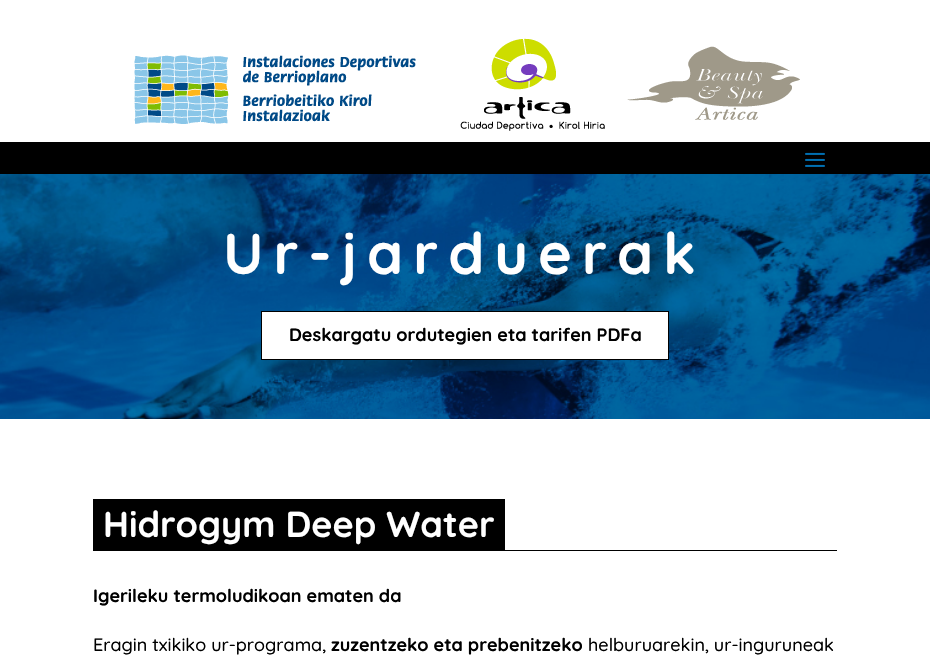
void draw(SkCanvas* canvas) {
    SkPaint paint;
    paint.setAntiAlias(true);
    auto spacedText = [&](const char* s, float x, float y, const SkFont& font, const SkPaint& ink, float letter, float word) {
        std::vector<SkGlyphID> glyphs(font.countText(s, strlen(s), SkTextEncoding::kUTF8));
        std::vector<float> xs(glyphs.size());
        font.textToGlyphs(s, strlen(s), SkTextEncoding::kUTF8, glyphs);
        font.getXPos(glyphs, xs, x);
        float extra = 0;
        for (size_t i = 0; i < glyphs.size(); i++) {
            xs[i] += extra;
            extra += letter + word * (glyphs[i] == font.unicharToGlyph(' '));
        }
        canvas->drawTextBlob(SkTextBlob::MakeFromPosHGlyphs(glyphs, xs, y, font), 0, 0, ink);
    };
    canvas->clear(0xFFFFFFFF);
    canvas->drawImageRect(SkImages::DeferredFromEncodedData(SkData::MakeFromFileName("img1.png")), SkRect::MakeXYWH(134, 38, 666, 93), SkSamplingOptions());
    paint.setColor(0xFF000000);
    canvas->drawRect(SkRect::MakeXYWH(0, 142, 930, 32), paint);
    canvas->drawImageRect(SkImages::DeferredFromEncodedData(SkData::MakeFromFileName("img2.png")), SkRect::MakeXYWH(805, 152, 20, 15), SkSamplingOptions());
    canvas->drawImageRect(SkImages::DeferredFromEncodedData(SkData::MakeFromFileName("img3.png")), SkRect::MakeXYWH(0, 174, 930, 245), SkSamplingOptions());
    SkFont font1(fontMgr->matchFamilyStyle("Quicksand", SkFontStyle::Bold()), 57.5f);
    font1.setSubpixel(true);
    paint.setColor(0xFFFFFFFF);
    spacedText("Ur-jarduerak", 223, 274, font1, paint, 10, 0);
    canvas->drawRect(SkRect::MakeXYWH(261.5f, 311.5f, 407, 48), paint);
    paint.setStyle(SkPaint::kStroke_Style);
    paint.setStrokeWidth(1);
    paint.setColor(0xFF000000);
    canvas->drawRect(SkRect::MakeXYWH(261.5f, 311.5f, 407, 48), paint);
    SkFont font2(fontMgr->matchFamilyStyle("Quicksand", SkFontStyle::Bold()), 18);
    font2.setSubpixel(true);
    paint.setStyle(SkPaint::kFill_Style);
    canvas->drawString("Deskargatu ordutegien eta tarifen PDFa", 289, 341, font2, paint);
    canvas->drawRect(SkRect::MakeXYWH(505, 550, 332, 1), paint);
    canvas->drawRect(SkRect::MakeXYWH(93, 499, 412, 52), paint);
    SkFont font3(fontMgr->matchFamilyStyle("Quicksand", SkFontStyle::Bold()), 36);
    font3.setSubpixel(true);
    paint.setColor(0xFFFFFFFF);
    canvas->drawString("Hidrogym Deep Water", 103, 537, font3, paint);
    paint.setColor(0xFF000000);
    canvas->drawString("Igerileku termoludikoan ematen da", 93, 602, font2, paint);
    SkFont font4(fontMgr->matchFamilyStyle("Quicksand", SkFontStyle(500, SkFontStyle::kNormal_Width, SkFontStyle::kUpright_Slant)), 18);
    font4.setSubpixel(true);
    canvas->drawString("Eragin txikiko ur-programa,", 93, 651, font4, paint);
    canvas->drawString("zuzentzeko eta prebenitzeko", 331, 651, font2, paint);
    canvas->drawString("helburuarekin, ur-inguruneak", 588, 651, font4, paint);
}
